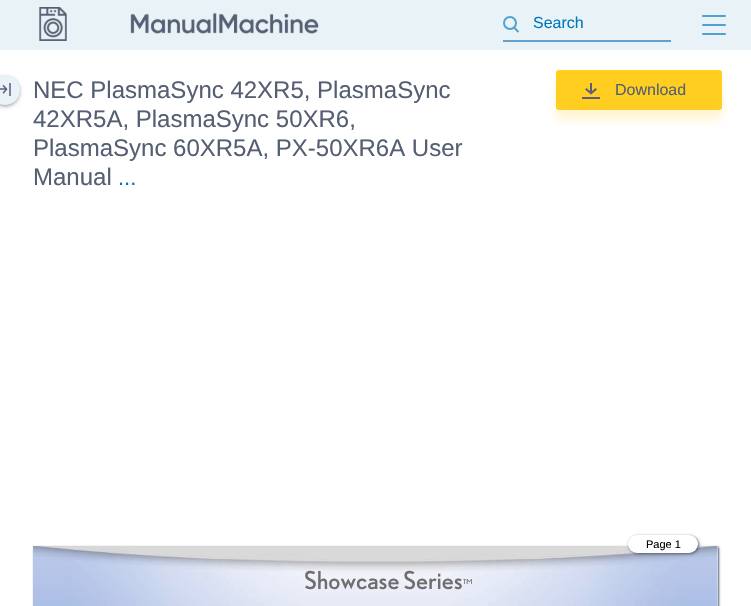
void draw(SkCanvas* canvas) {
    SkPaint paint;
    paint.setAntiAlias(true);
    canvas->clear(0xFFFFFFFF);
    paint.setColor(0xFFE9F2F7);
    canvas->drawRect(SkRect::MakeXYWH(0, 0, 751, 50), paint);
    canvas->drawImageRect(SkImages::DeferredFromEncodedData(SkData::MakeFromFileName("img1.png")), SkRect::MakeXYWH(39, 7, 28, 34), SkSamplingOptions());
    canvas->drawImageRect(SkImages::DeferredFromEncodedData(SkData::MakeFromFileName("img2.png")), SkRect::MakeXYWH(130, 12, 189, 22), SkSamplingOptions());
    paint.setStyle(SkPaint::kStroke_Style);
    paint.setStrokeWidth(2);
    paint.setStrokeCap(SkPaint::kRound_Cap);
    paint.setColor(0xFF50A1D0);
    canvas->drawPath(SkPathBuilder().moveTo(703, 16).lineTo(725, 16).moveTo(703, 25).lineTo(725, 25).moveTo(703, 34).lineTo(725, 34).detach(), paint);
    paint.setStrokeCap(SkPaint::kButt_Cap);
    paint.setStrokeJoin(SkPaint::kRound_Join);
    canvas->drawPath(SkPathBuilder().moveTo(518.5f, 32).lineTo(514.5f, 28).detach(), paint);
    paint.setStrokeJoin(SkPaint::kMiter_Join);
    canvas->drawCircle(510, 23, 6, paint);
    paint.setStyle(SkPaint::kFill_Style);
    paint.setColor(0xFF659FCC);
    canvas->drawRect(SkRect::MakeXYWH(503, 40, 168, 2), paint);
    SkFont font1(fontMgr->matchFamilyStyle("Liberation Sans", SkFontStyle::Normal()), 16);
    font1.setSubpixel(true);
    paint.setColor(0xFF0077BC);
    canvas->drawString("Search", 533, 28, font1, paint);
    paint.setColor(0x4D000000);
    paint.setMaskFilter(SkMaskFilter::MakeBlur(kNormal_SkBlurStyle, 1.5f));
    canvas->drawRoundRect(SkRect::MakeXYWH(-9, 77, 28, 28), 14, 14, paint);
    paint.setMaskFilter(nullptr);
    paint.setColor(0x6632325D);
    paint.setMaskFilter(SkMaskFilter::MakeBlur(kNormal_SkBlurStyle, 2.5f));
    canvas->drawRoundRect(SkRect::MakeXYWH(-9, 78, 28, 28), 14, 14, paint);
    paint.setMaskFilter(nullptr);
    paint.setColor(0xFFE9F2F7);
    canvas->drawPath(SkPathBuilder().moveTo(-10, 90).cubicTo(-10, 81.5f, -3.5f, 75, 5, 75).cubicTo(13.5f, 75, 20, 81.5f, 20, 90).cubicTo(20, 98.5f, 13.5f, 105, 5, 105).cubicTo(-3.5f, 105, -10, 98.5f, -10, 90).close().detach(), paint);
    canvas->drawImageRect(SkImages::DeferredFromEncodedData(SkData::MakeFromFileName("img3.png")), SkRect::MakeXYWH(0, 83, 11, 13), SkSamplingOptions());
    SkFont font2(fontMgr->matchFamilyStyle("Liberation Sans", SkFontStyle::Normal()), 24);
    font2.setSubpixel(true);
    paint.setColor(0xFF555F73);
    canvas->drawString("NEC PlasmaSync 42XR5, PlasmaSync", 33, 98, font2, paint);
    canvas->drawString("42XR5A, PlasmaSync 50XR6,", 33, 127, font2, paint);
    canvas->drawString("PlasmaSync 60XR5A, PX-50XR6A User", 33, 156, font2, paint);
    canvas->drawString("Manual", 33, 185, font2, paint);
    SkFont font3(fontMgr->matchFamilyStyle("Liberation Sans", SkFontStyle::Normal()), 22);
    font3.setSubpixel(true);
    paint.setColor(0xFF0077BC);
    canvas->drawString("...", 118, 185, font3, paint);
    paint.setColor(0x33FFCE20);
    paint.setMaskFilter(SkMaskFilter::MakeBlur(kNormal_SkBlurStyle, 5));
    canvas->drawRoundRect(SkRect::MakeXYWH(556, 80, 166, 40), 3, 3, paint);
    paint.setMaskFilter(nullptr);
    paint.setColor(0xFFFFCE20);
    canvas->drawRoundRect(SkRect::MakeXYWH(556, 70, 166, 40), 3, 3, paint);
    canvas->drawImageRect(SkImages::DeferredFromEncodedData(SkData::MakeFromFileName("img4.png")), SkRect::MakeXYWH(582, 83, 18, 16), SkSamplingOptions());
    paint.setColor(0xFF555F73);
    canvas->drawString("Download", 615, 95, font1, paint);
    paint.setMaskFilter(SkMaskFilter::MakeBlur(kNormal_SkBlurStyle, 1));
    canvas->drawRect(SkRect::MakeXYWH(34, 547, 685, 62), paint);
    paint.setMaskFilter(nullptr);
    paint.setColor(0xFFFFFFFF);
    canvas->drawRect(SkRect::MakeXYWH(717, 546, 1, 60), paint);
    canvas->drawImageRect(SkImages::DeferredFromEncodedData(SkData::MakeFromFileName("img5.png")), SkRect::MakeXYWH(33, 546, 685, 60), SkSamplingOptions());
    paint.setColor(0xFF555F73);
    paint.setMaskFilter(SkMaskFilter::MakeBlur(kNormal_SkBlurStyle, 1.5f));
    canvas->drawRoundRect(SkRect::MakeXYWH(629, 536, 70, 18), 9, 9, paint);
    paint.setMaskFilter(nullptr);
    paint.setColor(0xFFFFFFFF);
    canvas->drawRoundRect(SkRect::MakeXYWH(628, 535, 70, 18), 9, 9, paint);
    SkFont font4(fontMgr->matchFamilyStyle("Liberation Sans", SkFontStyle::Normal()), 11);
    font4.setSubpixel(true);
    paint.setColor(0xFF000000);
    canvas->drawString("Page 1", 646, 548, font4, paint);
    SkFont font5(fontMgr->matchFamilyStyle("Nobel", SkFontStyle::Normal()), 24.5f);
    font5.setSubpixel(true);
    paint.setColor(0xFF706D6E);
    canvas->drawString("Showcase Series", 304, 589, font5, paint);
    SkFont font6(fontMgr->matchFamilyStyle("Nobel", SkFontStyle::Normal()), 7);
    font6.setSubpixel(true);
    canvas->drawString("TM", 463, 584, font6, paint);
}
